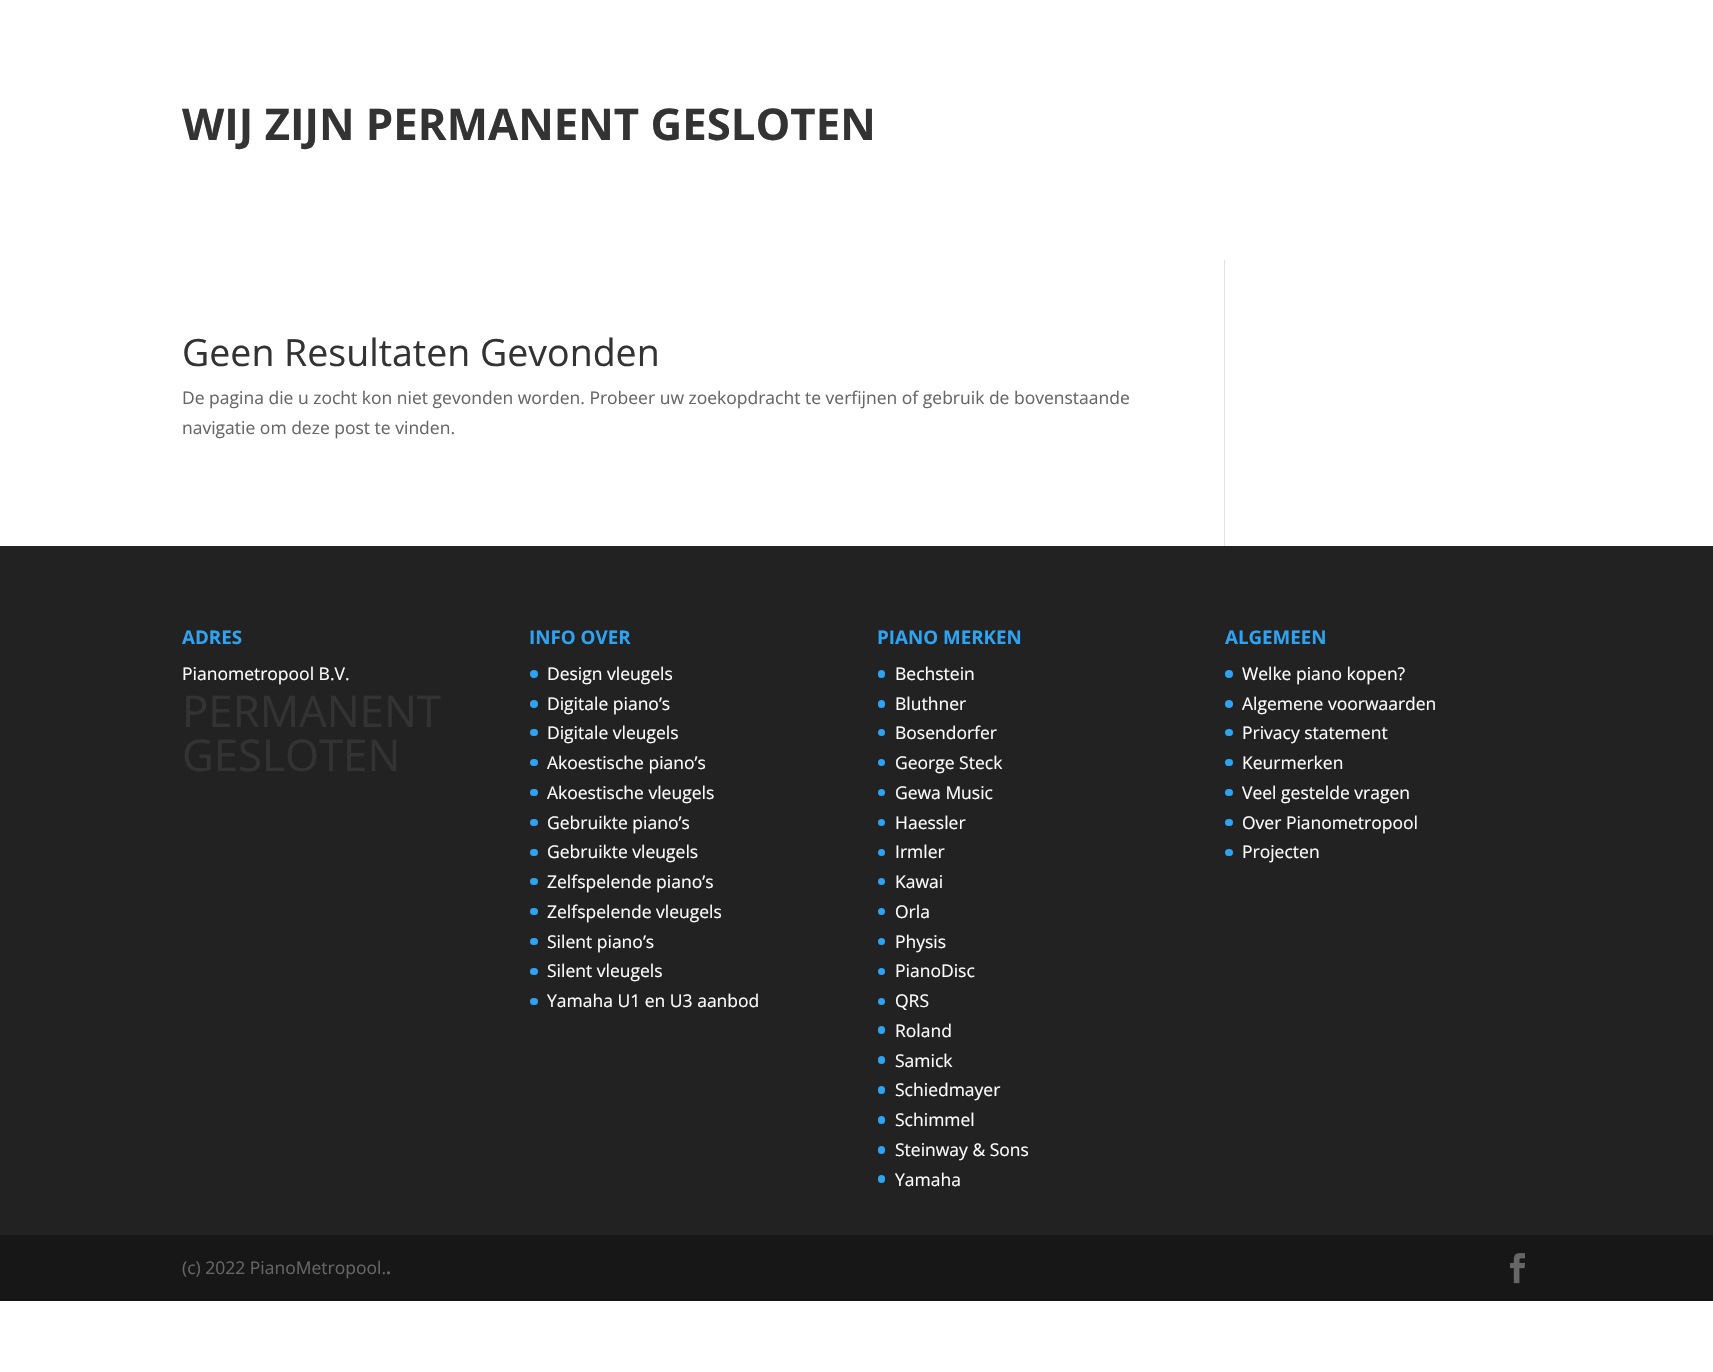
void draw(SkCanvas* canvas) {
    SkPaint paint;
    paint.setAntiAlias(true);
    canvas->clear(0xFFFFFFFF);
    SkFont font1(fontMgr->matchFamilyStyle("Open Sans", SkFontStyle::Bold()), 43.75f);
    font1.setSubpixel(true);
    paint.setColor(0xFF333333);
    canvas->drawString("WIJ ZIJN PERMANENT GESLOTEN", 182, 140, font1, paint);
    SkFont font2(fontMgr->matchFamilyStyle("Open Sans", SkFontStyle::Normal()), 37.5f);
    font2.setSubpixel(true);
    canvas->drawString("Geen Resultaten Gevonden", 182, 366, font2, paint);
    SkFont font3(fontMgr->matchFamilyStyle("Open Sans", SkFontStyle::Normal()), 17.5f);
    font3.setSubpixel(true);
    paint.setColor(0xFF666666);
    canvas->drawString("De pagina die u zocht kon niet gevonden worden. Probeer uw zoekopdracht te verfijnen of gebruik de bovenstaande", 182, 404, font3, paint);
    canvas->drawString("navigatie om deze post te vinden.", 182, 434, font3, paint);
    paint.setColor(0xFFE2E2E2);
    canvas->drawRect(SkRect::MakeXYWH(1224, 260, 1, 286), paint);
    paint.setColor(0xFF222222);
    canvas->drawRect(SkRect::MakeXYWH(0, 546, 1713, 689), paint);
    SkFont font4(fontMgr->matchFamilyStyle("Open Sans", SkFontStyle::Bold()), 18.75f);
    font4.setSubpixel(true);
    paint.setColor(0xFF2EA3F2);
    canvas->drawString("ADRES", 182, 644, font4, paint);
    paint.setColor(0xFFFFFFFF);
    canvas->drawString("Pianometropool B.V.", 182, 680, font3, paint);
    SkFont font5(fontMgr->matchFamilyStyle("Open Sans", SkFontStyle::Normal()), 43.75f);
    font5.setSubpixel(true);
    paint.setColor(0xFF333333);
    canvas->drawString("PERMANENT", 182, 727, font5, paint);
    canvas->drawString("GESLOTEN", 182, 771, font5, paint);
    paint.setColor(0xFF2EA3F2);
    canvas->drawString("INFO OVER", 529, 644, font4, paint);
    canvas->drawCircle(534, 674, 4, paint);
    paint.setColor(0xFFFFFFFF);
    canvas->drawString("Design vleugels", 547, 680, font3, paint);
    paint.setColor(0xFF2EA3F2);
    canvas->drawCircle(534, 704, 4, paint);
    paint.setColor(0xFFFFFFFF);
    canvas->drawString("Digitale piano’s", 547, 710, font3, paint);
    paint.setColor(0xFF2EA3F2);
    canvas->drawRoundRect(SkRect::MakeXYWH(530, 729, 8, 7), 3.5f, 3.5f, paint);
    paint.setColor(0xFFFFFFFF);
    canvas->drawString("Digitale vleugels", 547, 739, font3, paint);
    paint.setColor(0xFF2EA3F2);
    canvas->drawRoundRect(SkRect::MakeXYWH(530, 759, 8, 7), 3.5f, 3.5f, paint);
    paint.setColor(0xFFFFFFFF);
    canvas->drawString("Akoestische piano’s", 547, 769, font3, paint);
    paint.setColor(0xFF2EA3F2);
    canvas->drawRoundRect(SkRect::MakeXYWH(530, 789, 8, 7), 3.5f, 3.5f, paint);
    paint.setColor(0xFFFFFFFF);
    canvas->drawString("Akoestische vleugels", 547, 799, font3, paint);
    paint.setColor(0xFF2EA3F2);
    canvas->drawRoundRect(SkRect::MakeXYWH(530, 819, 8, 7), 3.5f, 3.5f, paint);
    paint.setColor(0xFFFFFFFF);
    canvas->drawString("Gebruikte piano’s", 547, 829, font3, paint);
    paint.setColor(0xFF2EA3F2);
    canvas->drawRoundRect(SkRect::MakeXYWH(530, 849, 8, 7), 3.5f, 3.5f, paint);
    paint.setColor(0xFFFFFFFF);
    canvas->drawString("Gebruikte vleugels", 547, 858, font3, paint);
    paint.setColor(0xFF2EA3F2);
    canvas->drawRoundRect(SkRect::MakeXYWH(530, 878, 8, 7), 3.5f, 3.5f, paint);
    paint.setColor(0xFFFFFFFF);
    canvas->drawString("Zelfspelende piano’s", 547, 888, font3, paint);
    paint.setColor(0xFF2EA3F2);
    canvas->drawRoundRect(SkRect::MakeXYWH(530, 908, 8, 7), 3.5f, 3.5f, paint);
    paint.setColor(0xFFFFFFFF);
    canvas->drawString("Zelfspelende vleugels", 547, 918, font3, paint);
    paint.setColor(0xFF2EA3F2);
    canvas->drawRoundRect(SkRect::MakeXYWH(530, 938, 8, 7), 3.5f, 3.5f, paint);
    paint.setColor(0xFFFFFFFF);
    canvas->drawString("Silent piano’s", 547, 948, font3, paint);
    paint.setColor(0xFF2EA3F2);
    canvas->drawRoundRect(SkRect::MakeXYWH(530, 968, 8, 7), 3.5f, 3.5f, paint);
    paint.setColor(0xFFFFFFFF);
    canvas->drawString("Silent vleugels", 547, 977, font3, paint);
    paint.setColor(0xFF2EA3F2);
    canvas->drawRoundRect(SkRect::MakeXYWH(530, 998, 8, 7), 3.5f, 3.5f, paint);
    paint.setColor(0xFFFFFFFF);
    canvas->drawString("Yamaha U1 en U3 aanbod", 547, 1007, font3, paint);
    paint.setColor(0xFF2EA3F2);
    canvas->drawString("PIANO MERKEN", 877, 644, font4, paint);
    canvas->drawRoundRect(SkRect::MakeXYWH(878, 670, 7, 8), 3.5f, 3.5f, paint);
    paint.setColor(0xFFFFFFFF);
    canvas->drawString("Bechstein", 895, 680, font3, paint);
    paint.setColor(0xFF2EA3F2);
    canvas->drawRoundRect(SkRect::MakeXYWH(878, 700, 7, 8), 3.5f, 3.5f, paint);
    paint.setColor(0xFFFFFFFF);
    canvas->drawString("Bluthner", 895, 710, font3, paint);
    paint.setColor(0xFF2EA3F2);
    canvas->drawCircle(881.5f, 732.5f, 3.5f, paint);
    paint.setColor(0xFFFFFFFF);
    canvas->drawString("Bosendorfer", 895, 739, font3, paint);
    paint.setColor(0xFF2EA3F2);
    canvas->drawCircle(881.5f, 762.5f, 3.5f, paint);
    paint.setColor(0xFFFFFFFF);
    canvas->drawString("George Steck", 895, 769, font3, paint);
    paint.setColor(0xFF2EA3F2);
    canvas->drawCircle(881.5f, 792.5f, 3.5f, paint);
    paint.setColor(0xFFFFFFFF);
    canvas->drawString("Gewa Music", 895, 799, font3, paint);
    paint.setColor(0xFF2EA3F2);
    canvas->drawCircle(881.5f, 822.5f, 3.5f, paint);
    paint.setColor(0xFFFFFFFF);
    canvas->drawString("Haessler", 895, 829, font3, paint);
    paint.setColor(0xFF2EA3F2);
    canvas->drawCircle(881.5f, 852.5f, 3.5f, paint);
    paint.setColor(0xFFFFFFFF);
    canvas->drawString("Irmler", 895, 858, font3, paint);
    paint.setColor(0xFF2EA3F2);
    canvas->drawCircle(881.5f, 881.5f, 3.5f, paint);
    paint.setColor(0xFFFFFFFF);
    canvas->drawString("Kawai", 895, 888, font3, paint);
    paint.setColor(0xFF2EA3F2);
    canvas->drawCircle(881.5f, 911.5f, 3.5f, paint);
    paint.setColor(0xFFFFFFFF);
    canvas->drawString("Orla", 895, 918, font3, paint);
    paint.setColor(0xFF2EA3F2);
    canvas->drawCircle(881.5f, 941.5f, 3.5f, paint);
    paint.setColor(0xFFFFFFFF);
    canvas->drawString("Physis", 895, 948, font3, paint);
    paint.setColor(0xFF2EA3F2);
    canvas->drawCircle(881.5f, 971.5f, 3.5f, paint);
    paint.setColor(0xFFFFFFFF);
    canvas->drawString("PianoDisc", 895, 977, font3, paint);
    paint.setColor(0xFF2EA3F2);
    canvas->drawCircle(881.5f, 1001.5f, 3.5f, paint);
    paint.setColor(0xFFFFFFFF);
    canvas->drawString("QRS", 895, 1007, font3, paint);
    paint.setColor(0xFF2EA3F2);
    canvas->drawRoundRect(SkRect::MakeXYWH(878, 1026, 7, 8), 3.5f, 3.5f, paint);
    paint.setColor(0xFFFFFFFF);
    canvas->drawString("Roland", 895, 1037, font3, paint);
    paint.setColor(0xFF2EA3F2);
    canvas->drawRoundRect(SkRect::MakeXYWH(878, 1056, 7, 8), 3.5f, 3.5f, paint);
    paint.setColor(0xFFFFFFFF);
    canvas->drawString("Samick", 895, 1067, font3, paint);
    paint.setColor(0xFF2EA3F2);
    canvas->drawRoundRect(SkRect::MakeXYWH(878, 1086, 7, 8), 3.5f, 3.5f, paint);
    paint.setColor(0xFFFFFFFF);
    canvas->drawString("Schiedmayer", 895, 1096, font3, paint);
    paint.setColor(0xFF2EA3F2);
    canvas->drawRoundRect(SkRect::MakeXYWH(878, 1116, 7, 8), 3.5f, 3.5f, paint);
    paint.setColor(0xFFFFFFFF);
    canvas->drawString("Schimmel", 895, 1126, font3, paint);
    paint.setColor(0xFF2EA3F2);
    canvas->drawRoundRect(SkRect::MakeXYWH(878, 1146, 7, 8), 3.5f, 3.5f, paint);
    paint.setColor(0xFFFFFFFF);
    canvas->drawString("Steinway & Sons", 895, 1156, font3, paint);
    paint.setColor(0xFF2EA3F2);
    canvas->drawRoundRect(SkRect::MakeXYWH(878, 1175, 7, 8), 3.5f, 3.5f, paint);
    paint.setColor(0xFFFFFFFF);
    canvas->drawString("Yamaha", 895, 1186, font3, paint);
    paint.setColor(0xFF2EA3F2);
    canvas->drawString("ALGEMEEN", 1225, 644, font4, paint);
    canvas->drawCircle(1229, 674, 4, paint);
    paint.setColor(0xFFFFFFFF);
    canvas->drawString("Welke piano kopen?", 1242, 680, font3, paint);
    paint.setColor(0xFF2EA3F2);
    canvas->drawCircle(1229, 704, 4, paint);
    paint.setColor(0xFFFFFFFF);
    canvas->drawString("Algemene voorwaarden", 1242, 710, font3, paint);
    paint.setColor(0xFF2EA3F2);
    canvas->drawRoundRect(SkRect::MakeXYWH(1225, 729, 8, 7), 3.5f, 3.5f, paint);
    paint.setColor(0xFFFFFFFF);
    canvas->drawString("Privacy statement", 1242, 739, font3, paint);
    paint.setColor(0xFF2EA3F2);
    canvas->drawRoundRect(SkRect::MakeXYWH(1225, 759, 8, 7), 3.5f, 3.5f, paint);
    paint.setColor(0xFFFFFFFF);
    canvas->drawString("Keurmerken", 1242, 769, font3, paint);
    paint.setColor(0xFF2EA3F2);
    canvas->drawRoundRect(SkRect::MakeXYWH(1225, 789, 8, 7), 3.5f, 3.5f, paint);
    paint.setColor(0xFFFFFFFF);
    canvas->drawString("Veel gestelde vragen", 1242, 799, font3, paint);
    paint.setColor(0xFF2EA3F2);
    canvas->drawRoundRect(SkRect::MakeXYWH(1225, 819, 8, 7), 3.5f, 3.5f, paint);
    paint.setColor(0xFFFFFFFF);
    canvas->drawString("Over Pianometropool", 1242, 829, font3, paint);
    paint.setColor(0xFF2EA3F2);
    canvas->drawRoundRect(SkRect::MakeXYWH(1225, 849, 8, 7), 3.5f, 3.5f, paint);
    paint.setColor(0xFFFFFFFF);
    canvas->drawString("Projecten", 1242, 858, font3, paint);
    paint.setColor(0xFF171717);
    canvas->drawRect(SkRect::MakeXYWH(0, 1235, 1713, 66), paint);
    paint.setColor(0xFF666666);
    canvas->drawString("(c) 2022 PianoMetropool.", 182, 1274, font3, paint);
    SkFont font6(fontMgr->matchFamilyStyle("Open Sans", SkFontStyle::Bold()), 17.5f);
    font6.setSubpixel(true);
    canvas->drawString(".", 386, 1274, font6, paint);
    canvas->drawImageRect(SkImages::DeferredFromEncodedData(SkData::MakeFromFileName("img1.png")), SkRect::MakeXYWH(1510, 1253, 15, 31), SkSamplingOptions());
}
